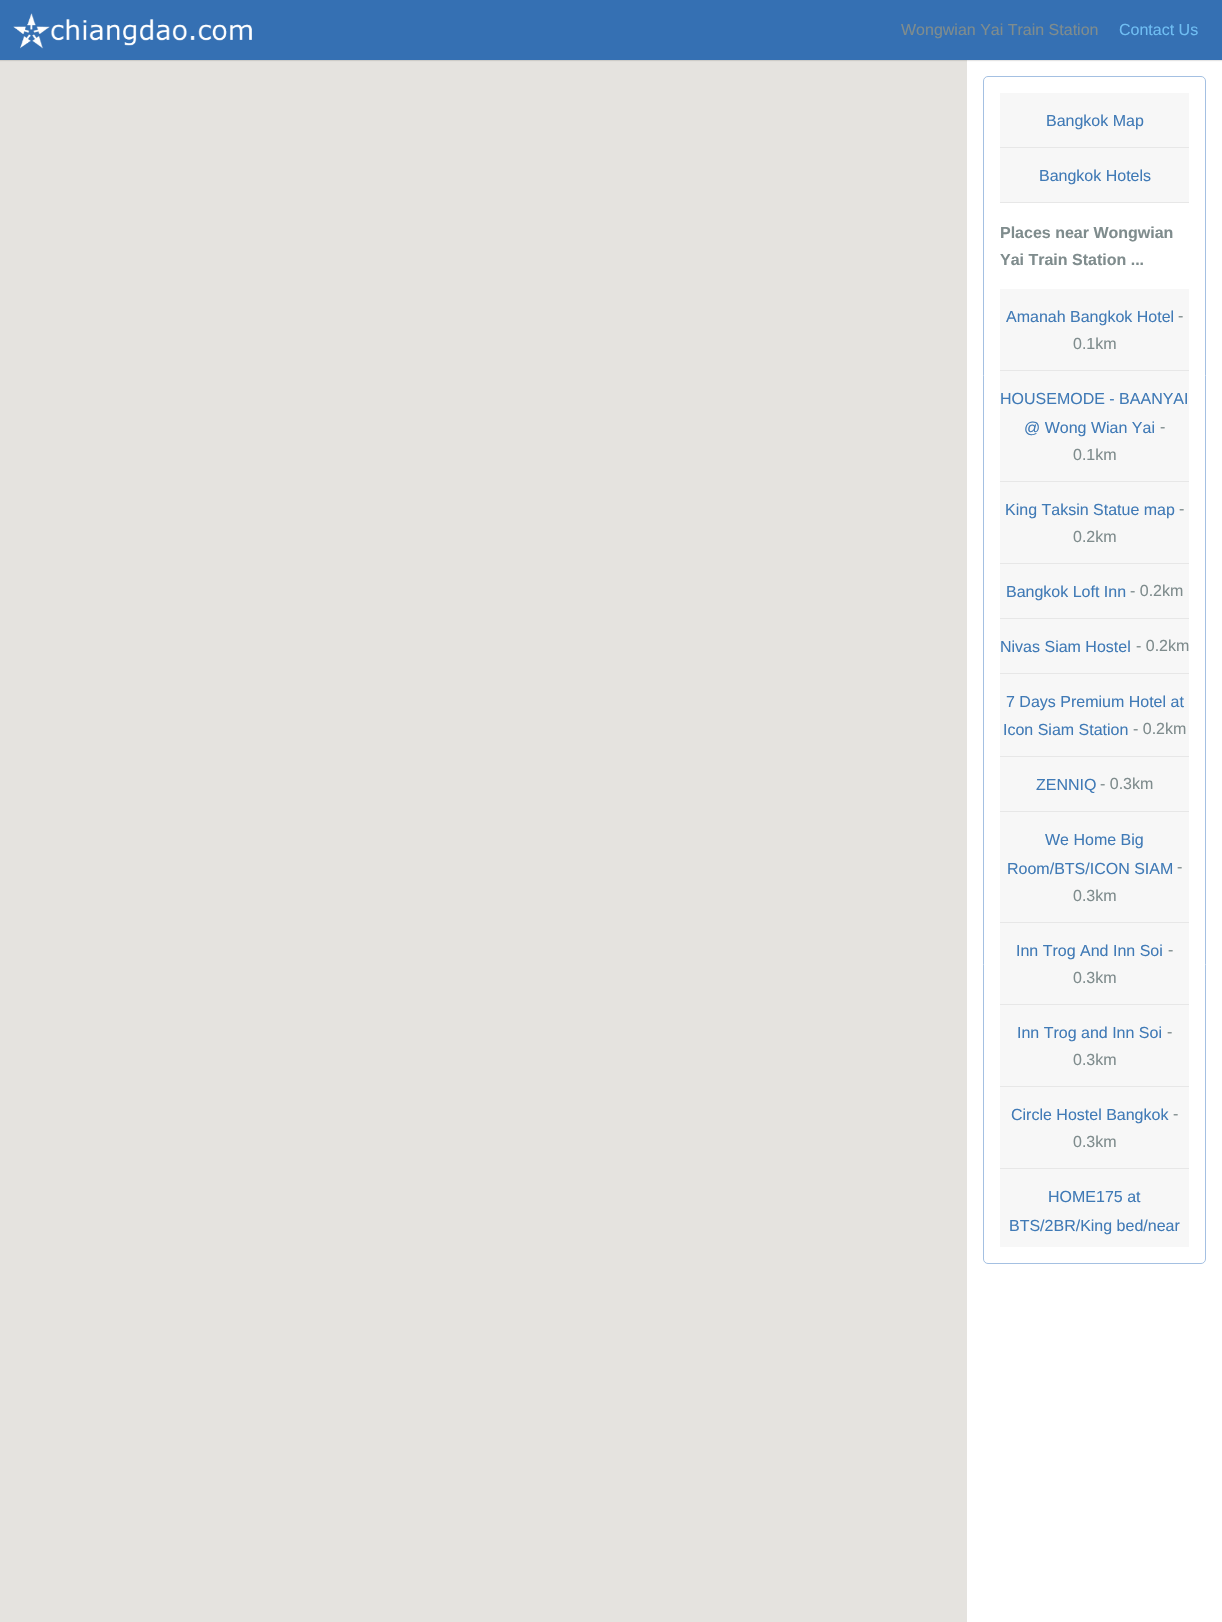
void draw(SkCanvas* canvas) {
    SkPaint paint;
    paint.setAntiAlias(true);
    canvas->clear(0xFFFFFFFF);
    paint.setColor(0xFFE5E3DF);
    canvas->drawRect(SkRect::MakeXYWH(0, 60, 967, 1562), paint);
    paint.setColor(0x1A000000);
    paint.setMaskFilter(SkMaskFilter::MakeBlur(kNormal_SkBlurStyle, 0.5f));
    canvas->drawRect(SkRect::MakeXYWH(0, 1, 1222, 60), paint);
    paint.setMaskFilter(nullptr);
    paint.setColor(0xFF3570B3);
    canvas->drawRect(SkRect::MakeXYWH(0, 0, 1222, 60), paint);
    canvas->drawImageRect(SkImages::DeferredFromEncodedData(SkData::MakeFromFileName("img1.png")), SkRect::MakeXYWH(13, 13, 239, 36), SkSamplingOptions());
    SkFont font1(fontMgr->matchFamilyStyle("Liberation Sans", SkFontStyle::Normal()), 16);
    font1.setSubpixel(true);
    paint.setColor(0xFF7F8C8D);
    canvas->drawString("Wongwian Yai Train Station", 901, 35, font1, paint);
    paint.setColor(0xFF6FBEF3);
    canvas->drawString("Contact Us", 1119, 35, font1, paint);
    paint.setStyle(SkPaint::kStroke_Style);
    paint.setStrokeWidth(1);
    paint.setColor(0xFFA4C0E2);
    canvas->drawRoundRect(SkRect::MakeXYWH(983.5f, 76.5f, 222, 1187), 4.5f, 4.5f, paint);
    paint.setStyle(SkPaint::kFill_Style);
    paint.setColor(0xFFF7F7F7);
    canvas->drawRect(SkRect::MakeXYWH(1000, 93, 189, 54), paint);
    paint.setColor(0xFFE7E7E7);
    canvas->drawRect(SkRect::MakeXYWH(1000, 147, 189, 1), paint);
    paint.setColor(0xFF407AB6);
    canvas->drawString("Bangkok Map", 1046, 126, font1, paint);
    paint.setColor(0xFFF7F7F7);
    canvas->drawRect(SkRect::MakeXYWH(1000, 148, 189, 54), paint);
    paint.setColor(0xFFE7E7E7);
    canvas->drawRect(SkRect::MakeXYWH(1000, 202, 189, 1), paint);
    paint.setColor(0xFF407AB6);
    canvas->drawString("Bangkok Hotels", 1039, 181, font1, paint);
    SkFont font2(fontMgr->matchFamilyStyle("Liberation Sans", SkFontStyle::Bold()), 16);
    font2.setSubpixel(true);
    paint.setColor(0xFF7F8C8D);
    canvas->drawString("Places near Wongwian", 1000, 238, font2, paint);
    canvas->drawString("Yai Train Station ...", 1000, 265, font2, paint);
    paint.setColor(0xFFF7F7F7);
    canvas->drawRect(SkRect::MakeXYWH(1000, 289, 189, 81), paint);
    paint.setColor(0xFFE7E7E7);
    canvas->drawRect(SkRect::MakeXYWH(1000, 370, 189, 1), paint);
    paint.setColor(0xFF407AB6);
    canvas->drawString("Amanah Bangkok Hotel", 1006, 322, font1, paint);
    paint.setColor(0xFF7F8C8D);
    canvas->drawString("-", 1178, 321, font1, paint);
    canvas->drawString("0.1km", 1073, 349, font1, paint);
    paint.setColor(0xFFF7F7F7);
    canvas->drawRect(SkRect::MakeXYWH(1000, 371, 189, 110), paint);
    paint.setColor(0xFFE7E7E7);
    canvas->drawRect(SkRect::MakeXYWH(1000, 481, 189, 1), paint);
    paint.setColor(0xFF407AB6);
    canvas->drawString("HOUSEMODE - BAANYAI", 1000, 404, font1, paint);
    canvas->drawString("@ Wong Wian Yai", 1024, 433, font1, paint);
    paint.setColor(0xFF7F8C8D);
    canvas->drawString("-", 1160, 432, font1, paint);
    canvas->drawString("0.1km", 1073, 460, font1, paint);
    paint.setColor(0xFFF7F7F7);
    canvas->drawRect(SkRect::MakeXYWH(1000, 482, 189, 81), paint);
    paint.setColor(0xFFE7E7E7);
    canvas->drawRect(SkRect::MakeXYWH(1000, 563, 189, 1), paint);
    paint.setColor(0xFF407AB6);
    canvas->drawString("King Taksin Statue map", 1005, 515, font1, paint);
    paint.setColor(0xFF7F8C8D);
    canvas->drawString("-", 1179, 514, font1, paint);
    canvas->drawString("0.2km", 1073, 542, font1, paint);
    paint.setColor(0xFFF7F7F7);
    canvas->drawRect(SkRect::MakeXYWH(1000, 564, 189, 54), paint);
    paint.setColor(0xFFE7E7E7);
    canvas->drawRect(SkRect::MakeXYWH(1000, 618, 189, 1), paint);
    paint.setColor(0xFF407AB6);
    canvas->drawString("Bangkok Loft Inn", 1006, 597, font1, paint);
    paint.setColor(0xFF7F8C8D);
    canvas->drawString("- 0.2km", 1130, 596, font1, paint);
    paint.setColor(0xFFF7F7F7);
    canvas->drawRect(SkRect::MakeXYWH(1000, 619, 189, 54), paint);
    paint.setColor(0xFFE7E7E7);
    canvas->drawRect(SkRect::MakeXYWH(1000, 673, 189, 1), paint);
    paint.setColor(0xFF407AB6);
    canvas->drawString("Nivas Siam Hostel", 1000, 652, font1, paint);
    paint.setColor(0xFF7F8C8D);
    canvas->drawString("- 0.2km", 1136, 651, font1, paint);
    paint.setColor(0xFFF7F7F7);
    canvas->drawRect(SkRect::MakeXYWH(1000, 674, 189, 82), paint);
    paint.setColor(0xFFE7E7E7);
    canvas->drawRect(SkRect::MakeXYWH(1000, 756, 189, 1), paint);
    paint.setColor(0xFF407AB6);
    canvas->drawString("7 Days Premium Hotel at", 1006, 707, font1, paint);
    canvas->drawString("Icon Siam Station", 1003, 735, font1, paint);
    paint.setColor(0xFF7F8C8D);
    canvas->drawString("- 0.2km", 1133, 734, font1, paint);
    paint.setColor(0xFFF7F7F7);
    canvas->drawRect(SkRect::MakeXYWH(1000, 757, 189, 54), paint);
    paint.setColor(0xFFE7E7E7);
    canvas->drawRect(SkRect::MakeXYWH(1000, 811, 189, 1), paint);
    paint.setColor(0xFF407AB6);
    canvas->drawString("ZENNIQ", 1036, 790, font1, paint);
    paint.setColor(0xFF7F8C8D);
    canvas->drawString("- 0.3km", 1100, 789, font1, paint);
    paint.setColor(0xFFF7F7F7);
    canvas->drawRect(SkRect::MakeXYWH(1000, 812, 189, 110), paint);
    paint.setColor(0xFFE7E7E7);
    canvas->drawRect(SkRect::MakeXYWH(1000, 922, 189, 1), paint);
    paint.setColor(0xFF407AB6);
    canvas->drawString("We Home Big", 1045, 845, font1, paint);
    canvas->drawString("Room/BTS/ICON SIAM", 1007, 874, font1, paint);
    paint.setColor(0xFF7F8C8D);
    canvas->drawString("-", 1177, 872, font1, paint);
    canvas->drawString("0.3km", 1073, 901, font1, paint);
    paint.setColor(0xFFF7F7F7);
    canvas->drawRect(SkRect::MakeXYWH(1000, 923, 189, 81), paint);
    paint.setColor(0xFFE7E7E7);
    canvas->drawRect(SkRect::MakeXYWH(1000, 1004, 189, 1), paint);
    paint.setColor(0xFF407AB6);
    canvas->drawString("Inn Trog And Inn Soi", 1016, 956, font1, paint);
    paint.setColor(0xFF7F8C8D);
    canvas->drawString("-", 1168, 955, font1, paint);
    canvas->drawString("0.3km", 1073, 983, font1, paint);
    paint.setColor(0xFFF7F7F7);
    canvas->drawRect(SkRect::MakeXYWH(1000, 1005, 189, 81), paint);
    paint.setColor(0xFFE7E7E7);
    canvas->drawRect(SkRect::MakeXYWH(1000, 1086, 189, 1), paint);
    paint.setColor(0xFF407AB6);
    canvas->drawString("Inn Trog and Inn Soi", 1017, 1038, font1, paint);
    paint.setColor(0xFF7F8C8D);
    canvas->drawString("-", 1167, 1037, font1, paint);
    canvas->drawString("0.3km", 1073, 1065, font1, paint);
    paint.setColor(0xFFF7F7F7);
    canvas->drawRect(SkRect::MakeXYWH(1000, 1087, 189, 81), paint);
    paint.setColor(0xFFE7E7E7);
    canvas->drawRect(SkRect::MakeXYWH(1000, 1168, 189, 1), paint);
    paint.setColor(0xFF407AB6);
    canvas->drawString("Circle Hostel Bangkok", 1011, 1120, font1, paint);
    paint.setColor(0xFF7F8C8D);
    canvas->drawString("-", 1173, 1119, font1, paint);
    canvas->drawString("0.3km", 1073, 1147, font1, paint);
    paint.setColor(0xFFF7F7F7);
    canvas->drawRect(SkRect::MakeXYWH(1000, 1169, 189, 78), paint);
    paint.setColor(0xFF407AB6);
    canvas->drawString("HOME175 at", 1048, 1202, font1, paint);
    canvas->drawString("BTS/2BR/King bed/near", 1009, 1231, font1, paint);
}
